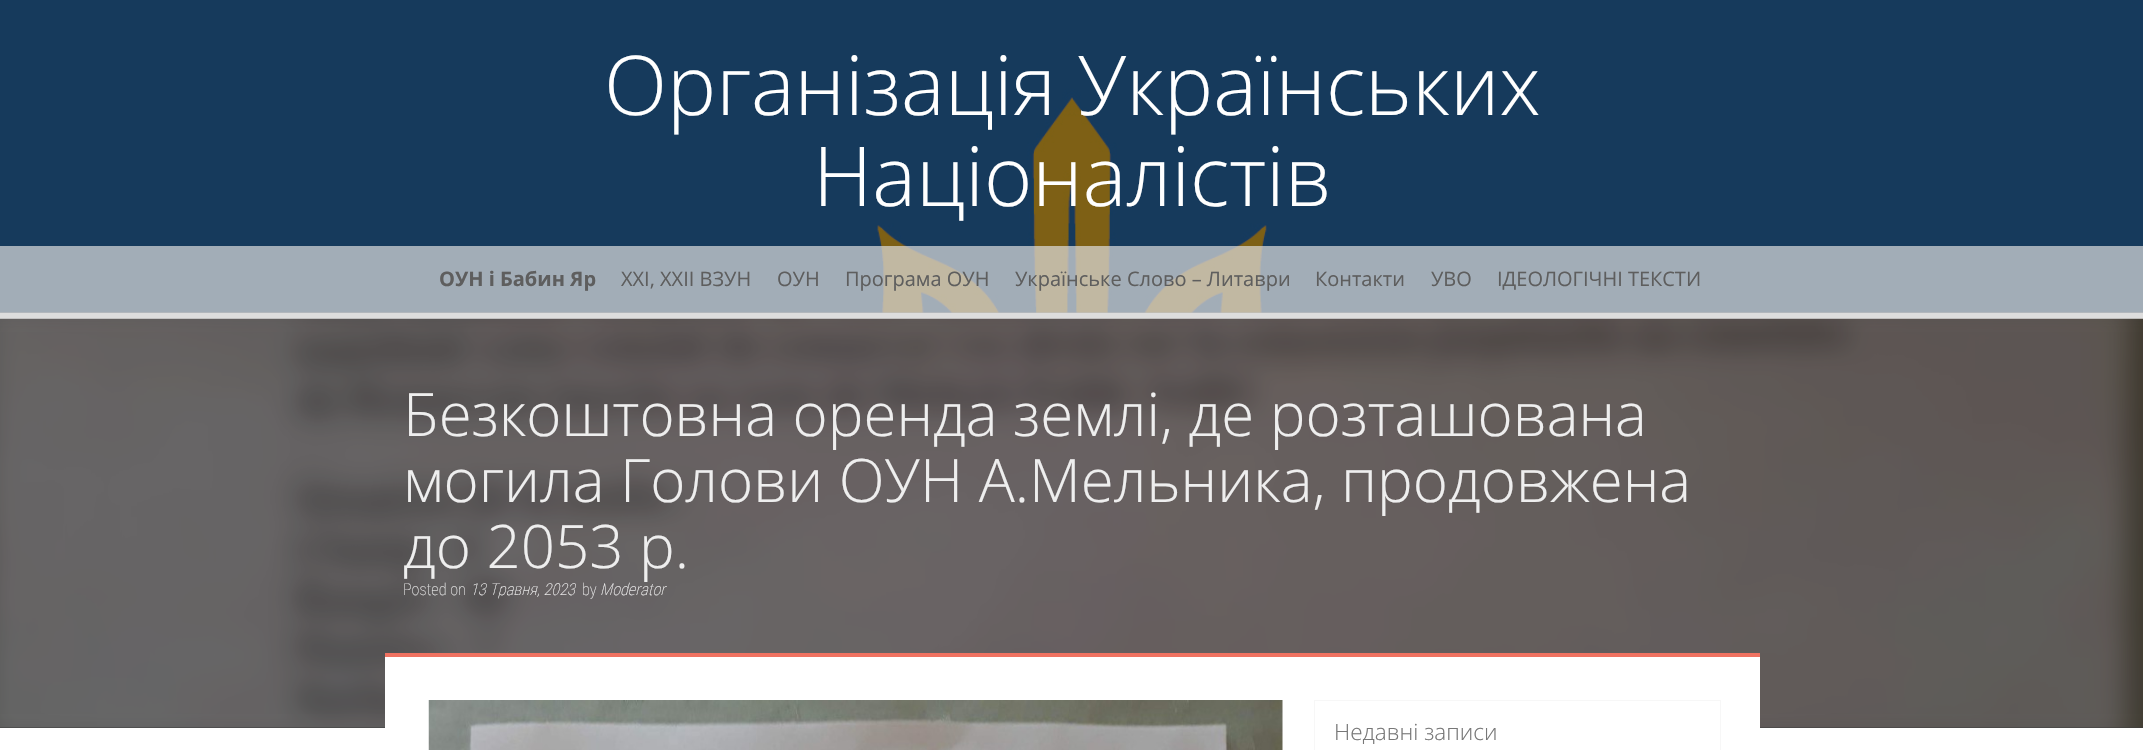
void draw(SkCanvas* canvas) {
    SkPaint paint;
    paint.setAntiAlias(true);
    canvas->clear(0xFFFFFFFF);
    paint.setColor(0xFF808080);
    canvas->drawRect(SkRect::MakeXYWH(0, 312, 2143, 1), paint);
    canvas->drawImageRect(SkImages::DeferredFromEncodedData(SkData::MakeFromFileName("img1.png")), SkRect::MakeXYWH(0, 0, 2143, 313), SkSamplingOptions());
    SkFont font1(fontMgr->matchFamilyStyle("Open Sans", SkFontStyle(300, SkFontStyle::kNormal_Width, SkFontStyle::kUpright_Slant)), 82.5f);
    font1.setSubpixel(true);
    paint.setColor(0xFFFFFFFF);
    canvas->drawString("Організація Українських", 604, 115, font1, paint);
    canvas->drawString("Націоналістів", 813, 206, font1, paint);
    paint.setColor(0xB3DDDDDD);
    canvas->drawRect(SkRect::MakeXYWH(0, 246, 2143, 67), paint);
    paint.setColor(0xFFDDDDDD);
    canvas->drawRect(SkRect::MakeXYWH(0, 313, 2143, 6), paint);
    SkFont font2(fontMgr->matchFamilyStyle("Open Sans", SkFontStyle::Bold()), 20);
    font2.setSubpixel(true);
    paint.setColor(0xFF5E5E5E);
    canvas->drawString("ОУН і Бабин Яр", 439, 286, font2, paint);
    SkFont font3(fontMgr->matchFamilyStyle("Open Sans", SkFontStyle::Normal()), 20);
    font3.setSubpixel(true);
    canvas->drawString("XXI, ХХІІ ВЗУН", 621, 286, font3, paint);
    canvas->drawString("ОУН", 777, 286, font3, paint);
    canvas->drawString("Програма ОУН", 845, 286, font3, paint);
    canvas->drawString("Українське Слово – Литаври", 1015, 286, font3, paint);
    canvas->drawString("Контакти", 1315, 286, font3, paint);
    canvas->drawString("УВО", 1431, 286, font3, paint);
    canvas->drawString("ІДЕОЛОГІЧНІ ТЕКСТИ", 1497, 286, font3, paint);
    paint.setColor(0xFF444444);
    canvas->drawRect(SkRect::MakeXYWH(0, 319, 2143, 409), paint);
    canvas->drawImageRect(SkImages::DeferredFromEncodedData(SkData::MakeFromFileName("img2.png")), SkRect::MakeXYWH(0, 318, 2143, 410), SkSamplingOptions());
    paint.setColor(0x1A000000);
    canvas->drawRect(SkRect::MakeXYWH(0, 319, 2143, 409), paint);
    SkFont font4(fontMgr->matchFamilyStyle("Open Sans", SkFontStyle(300, SkFontStyle::kNormal_Width, SkFontStyle::kUpright_Slant)), 60);
    font4.setSubpixel(true);
    paint.setColor(0xFFEEEEEE);
    canvas->drawString("Безкоштовна оренда землі, де розташована", 403, 436, font4, paint);
    canvas->drawString("могила Голови ОУН А.Мельника, продовжена", 403, 502, font4, paint);
    canvas->drawString("до 2053 р.", 403, 568, font4, paint);
    SkFont font5(fontMgr->matchFamilyStyle("Roboto Condensed", SkFontStyle(100, SkFontStyle::kNormal_Width, SkFontStyle::kUpright_Slant)), 16.25f);
    font5.setSubpixel(true);
    canvas->drawString("Posted on", 403, 595, font5, paint);
    SkFont font6(fontMgr->matchFamilyStyle("Roboto Condensed", SkFontStyle(100, SkFontStyle::kNormal_Width, SkFontStyle::kItalic_Slant)), 16.25f);
    font6.setSubpixel(true);
    paint.setColor(0xFFFFFFFF);
    canvas->drawString("13 Травня, 2023", 470, 595, font6, paint);
    paint.setColor(0xFFEEEEEE);
    canvas->drawString("by", 582, 595, font5, paint);
    paint.setColor(0xFFFFFFFF);
    canvas->drawString("Moderator", 600, 595, font6, paint);
    canvas->drawRect(SkRect::MakeXYWH(385, 657, 1375, 71), paint);
    paint.setColor(0xFFF07261);
    canvas->drawRect(SkRect::MakeXYWH(385, 653, 1375, 4), paint);
    canvas->drawImageRect(SkImages::DeferredFromEncodedData(SkData::MakeFromFileName("img3.png")), SkRect::MakeXYWH(428, 700, 855, 50), SkSamplingOptions());
    paint.setColor(0xFFF7F7F7);
    canvas->drawRect(SkRect::MakeXYWH(1314, 700, 407, 50), paint);
    paint.setColor(0xFFFFFFFF);
    canvas->drawRect(SkRect::MakeXYWH(1315, 701, 405, 49), paint);
    SkFont font7(fontMgr->matchFamilyStyle("Open Sans", SkFontStyle(300, SkFontStyle::kNormal_Width, SkFontStyle::kUpright_Slant)), 22.5f);
    font7.setSubpixel(true);
    paint.setColor(0xFF777777);
    canvas->drawString("Недавні записи", 1334, 740, font7, paint);
}
